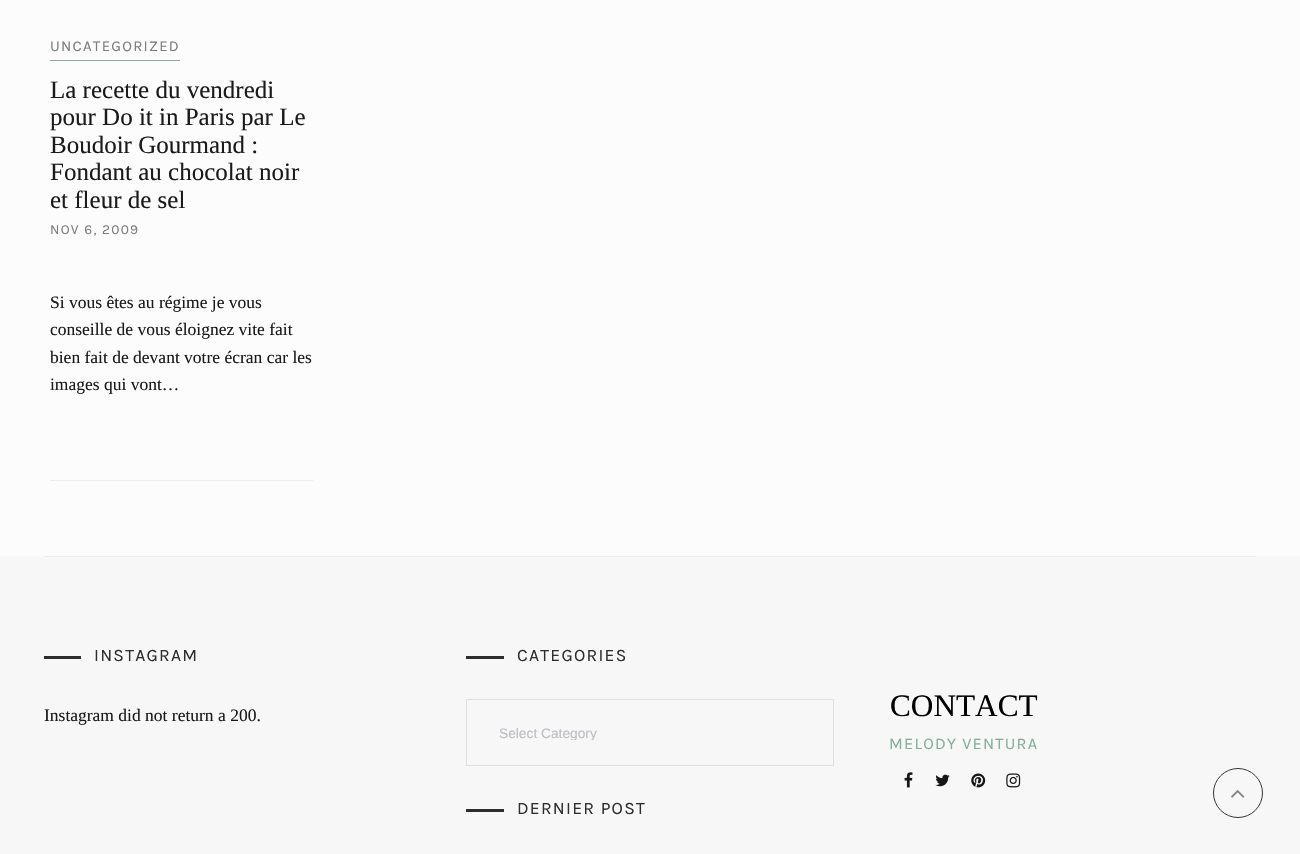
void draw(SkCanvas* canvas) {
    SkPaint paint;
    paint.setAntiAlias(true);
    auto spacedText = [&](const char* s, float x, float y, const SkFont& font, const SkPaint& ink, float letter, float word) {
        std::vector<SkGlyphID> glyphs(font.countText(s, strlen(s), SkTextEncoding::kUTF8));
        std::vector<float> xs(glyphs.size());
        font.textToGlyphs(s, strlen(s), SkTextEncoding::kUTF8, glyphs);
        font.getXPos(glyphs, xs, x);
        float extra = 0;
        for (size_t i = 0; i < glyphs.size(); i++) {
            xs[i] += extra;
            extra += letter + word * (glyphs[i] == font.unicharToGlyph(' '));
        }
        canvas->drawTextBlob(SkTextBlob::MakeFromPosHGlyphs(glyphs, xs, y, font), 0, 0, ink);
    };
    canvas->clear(0xFFFCFCFC);
    paint.setColor(0xFFEDEDED);
    canvas->drawRect(SkRect::MakeXYWH(50, 480, 263, 1), paint);
    SkFont font1(fontMgr->matchFamilyStyle("Karla", SkFontStyle::Normal()), 15);
    font1.setSubpixel(true);
    paint.setColor(0xFF7C7C7C);
    spacedText("UNCATEGORIZED", 50, 51, font1, paint, 1.25f, 0);
    paint.setColor(0xFF83AF99);
    canvas->drawRect(SkRect::MakeXYWH(50, 60, 130, 1), paint);
    SkFont font2(fontMgr->matchFamilyStyle("Liberation Serif", SkFontStyle::Normal()), 25);
    font2.setSubpixel(true);
    paint.setColor(0xFF1A1A1A);
    canvas->drawString("La recette du vendredi", 50, 98, font2, paint);
    canvas->drawString("pour Do it in Paris par Le", 50, 125, font2, paint);
    canvas->drawString("Boudoir Gourmand :", 50, 153, font2, paint);
    canvas->drawString("Fondant au chocolat noir", 50, 180, font2, paint);
    canvas->drawString("et fleur de sel", 50, 208, font2, paint);
    SkFont font3(fontMgr->matchFamilyStyle("Karla", SkFontStyle::Normal()), 13.75f);
    font3.setSubpixel(true);
    paint.setColor(0xFF7C7C7C);
    spacedText("NOV 6, 2009", 50, 234, font3, paint, 1.25f, 0);
    SkFont font4(fontMgr->matchFamilyStyle("Liberation Serif", SkFontStyle::Normal()), 17.5f);
    font4.setSubpixel(true);
    paint.setColor(0xFF1A1A1A);
    canvas->drawString("Si vous êtes au régime je vous", 50, 308, font4, paint);
    canvas->drawString("conseille de vous éloignez vite fait", 50, 335, font4, paint);
    canvas->drawString("bien fait de devant votre écran car les", 50, 363, font4, paint);
    canvas->drawString("images qui vont…", 50, 390, font4, paint);
    paint.setColor(0xFFF7F7F7);
    canvas->drawRect(SkRect::MakeXYWH(0, 556, 1300, 298), paint);
    paint.setColor(0xFFEAEAEA);
    canvas->drawRect(SkRect::MakeXYWH(44, 556, 1212, 1), paint);
    paint.setColor(0xFF2D2D2D);
    canvas->drawRect(SkRect::MakeXYWH(44, 656, 37, 3), paint);
    SkFont font5(fontMgr->matchFamilyStyle("Karla", SkFontStyle::Normal()), 17.5f);
    font5.setSubpixel(true);
    spacedText("INSTAGRAM", 94, 661, font5, paint, 1.25f, 0);
    paint.setColor(0xFF1A1A1A);
    canvas->drawString("Instagram did not return a 200.", 44, 721, font4, paint);
    paint.setColor(0xFF2D2D2D);
    canvas->drawRect(SkRect::MakeXYWH(466, 656, 38, 3), paint);
    spacedText("CATEGORIES", 517, 661, font5, paint, 1.25f, 0);
    paint.setStyle(SkPaint::kStroke_Style);
    paint.setStrokeWidth(1);
    paint.setColor(0xFFDFDFDF);
    canvas->drawRect(SkRect::MakeXYWH(466.5f, 699.5f, 367, 66), paint);
    canvas->save();
    canvas->clipRect(SkRect::MakeXYWH(499, 725, 327, 15));
    SkFont font6(fontMgr->matchFamilyStyle("Liberation Sans", SkFontStyle::Normal()), 13.75f);
    font6.setSubpixel(true);
    paint.setStyle(SkPaint::kFill_Style);
    paint.setColor(0xFFBCBCC4);
    canvas->drawString("Select Category", 499, 738, font6, paint);
    canvas->restore();
    paint.setColor(0xFF2D2D2D);
    canvas->drawRect(SkRect::MakeXYWH(466, 809, 38, 3), paint);
    spacedText("DERNIER POST", 517, 814, font5, paint, 1.25f, 0);
    SkFont font7(fontMgr->matchFamilyStyle("Liberation Serif", SkFontStyle::Normal()), 31.25f);
    font7.setSubpixel(true);
    paint.setColor(0xFF000000);
    canvas->drawString("CONTACT", 890, 716, font7, paint);
    SkFont font8(fontMgr->matchFamilyStyle("Karla", SkFontStyle::Normal()), 16.25f);
    font8.setSubpixel(true);
    paint.setColor(0xFF83AF99);
    spacedText("MELODY VENTURA", 889, 749, font8, paint, 1.25f, 0);
    canvas->drawImageRect(SkImages::DeferredFromEncodedData(SkData::MakeFromFileName("img1.png")), SkRect::MakeXYWH(904, 772, 9, 16), SkSamplingOptions());
    canvas->drawImageRect(SkImages::DeferredFromEncodedData(SkData::MakeFromFileName("img2.png")), SkRect::MakeXYWH(935, 774, 15, 13), SkSamplingOptions());
    canvas->drawImageRect(SkImages::DeferredFromEncodedData(SkData::MakeFromFileName("img3.png")), SkRect::MakeXYWH(971, 773, 15, 15), SkSamplingOptions());
    canvas->drawImageRect(SkImages::DeferredFromEncodedData(SkData::MakeFromFileName("img4.png")), SkRect::MakeXYWH(1006, 773, 15, 15), SkSamplingOptions());
    paint.setStyle(SkPaint::kStroke_Style);
    paint.setColor(0xFF353535);
    canvas->drawCircle(1238, 793, 24.5f, paint);
    canvas->drawImageRect(SkImages::DeferredFromEncodedData(SkData::MakeFromFileName("img5.png")), SkRect::MakeXYWH(1231, 790, 14, 8), SkSamplingOptions());
}
